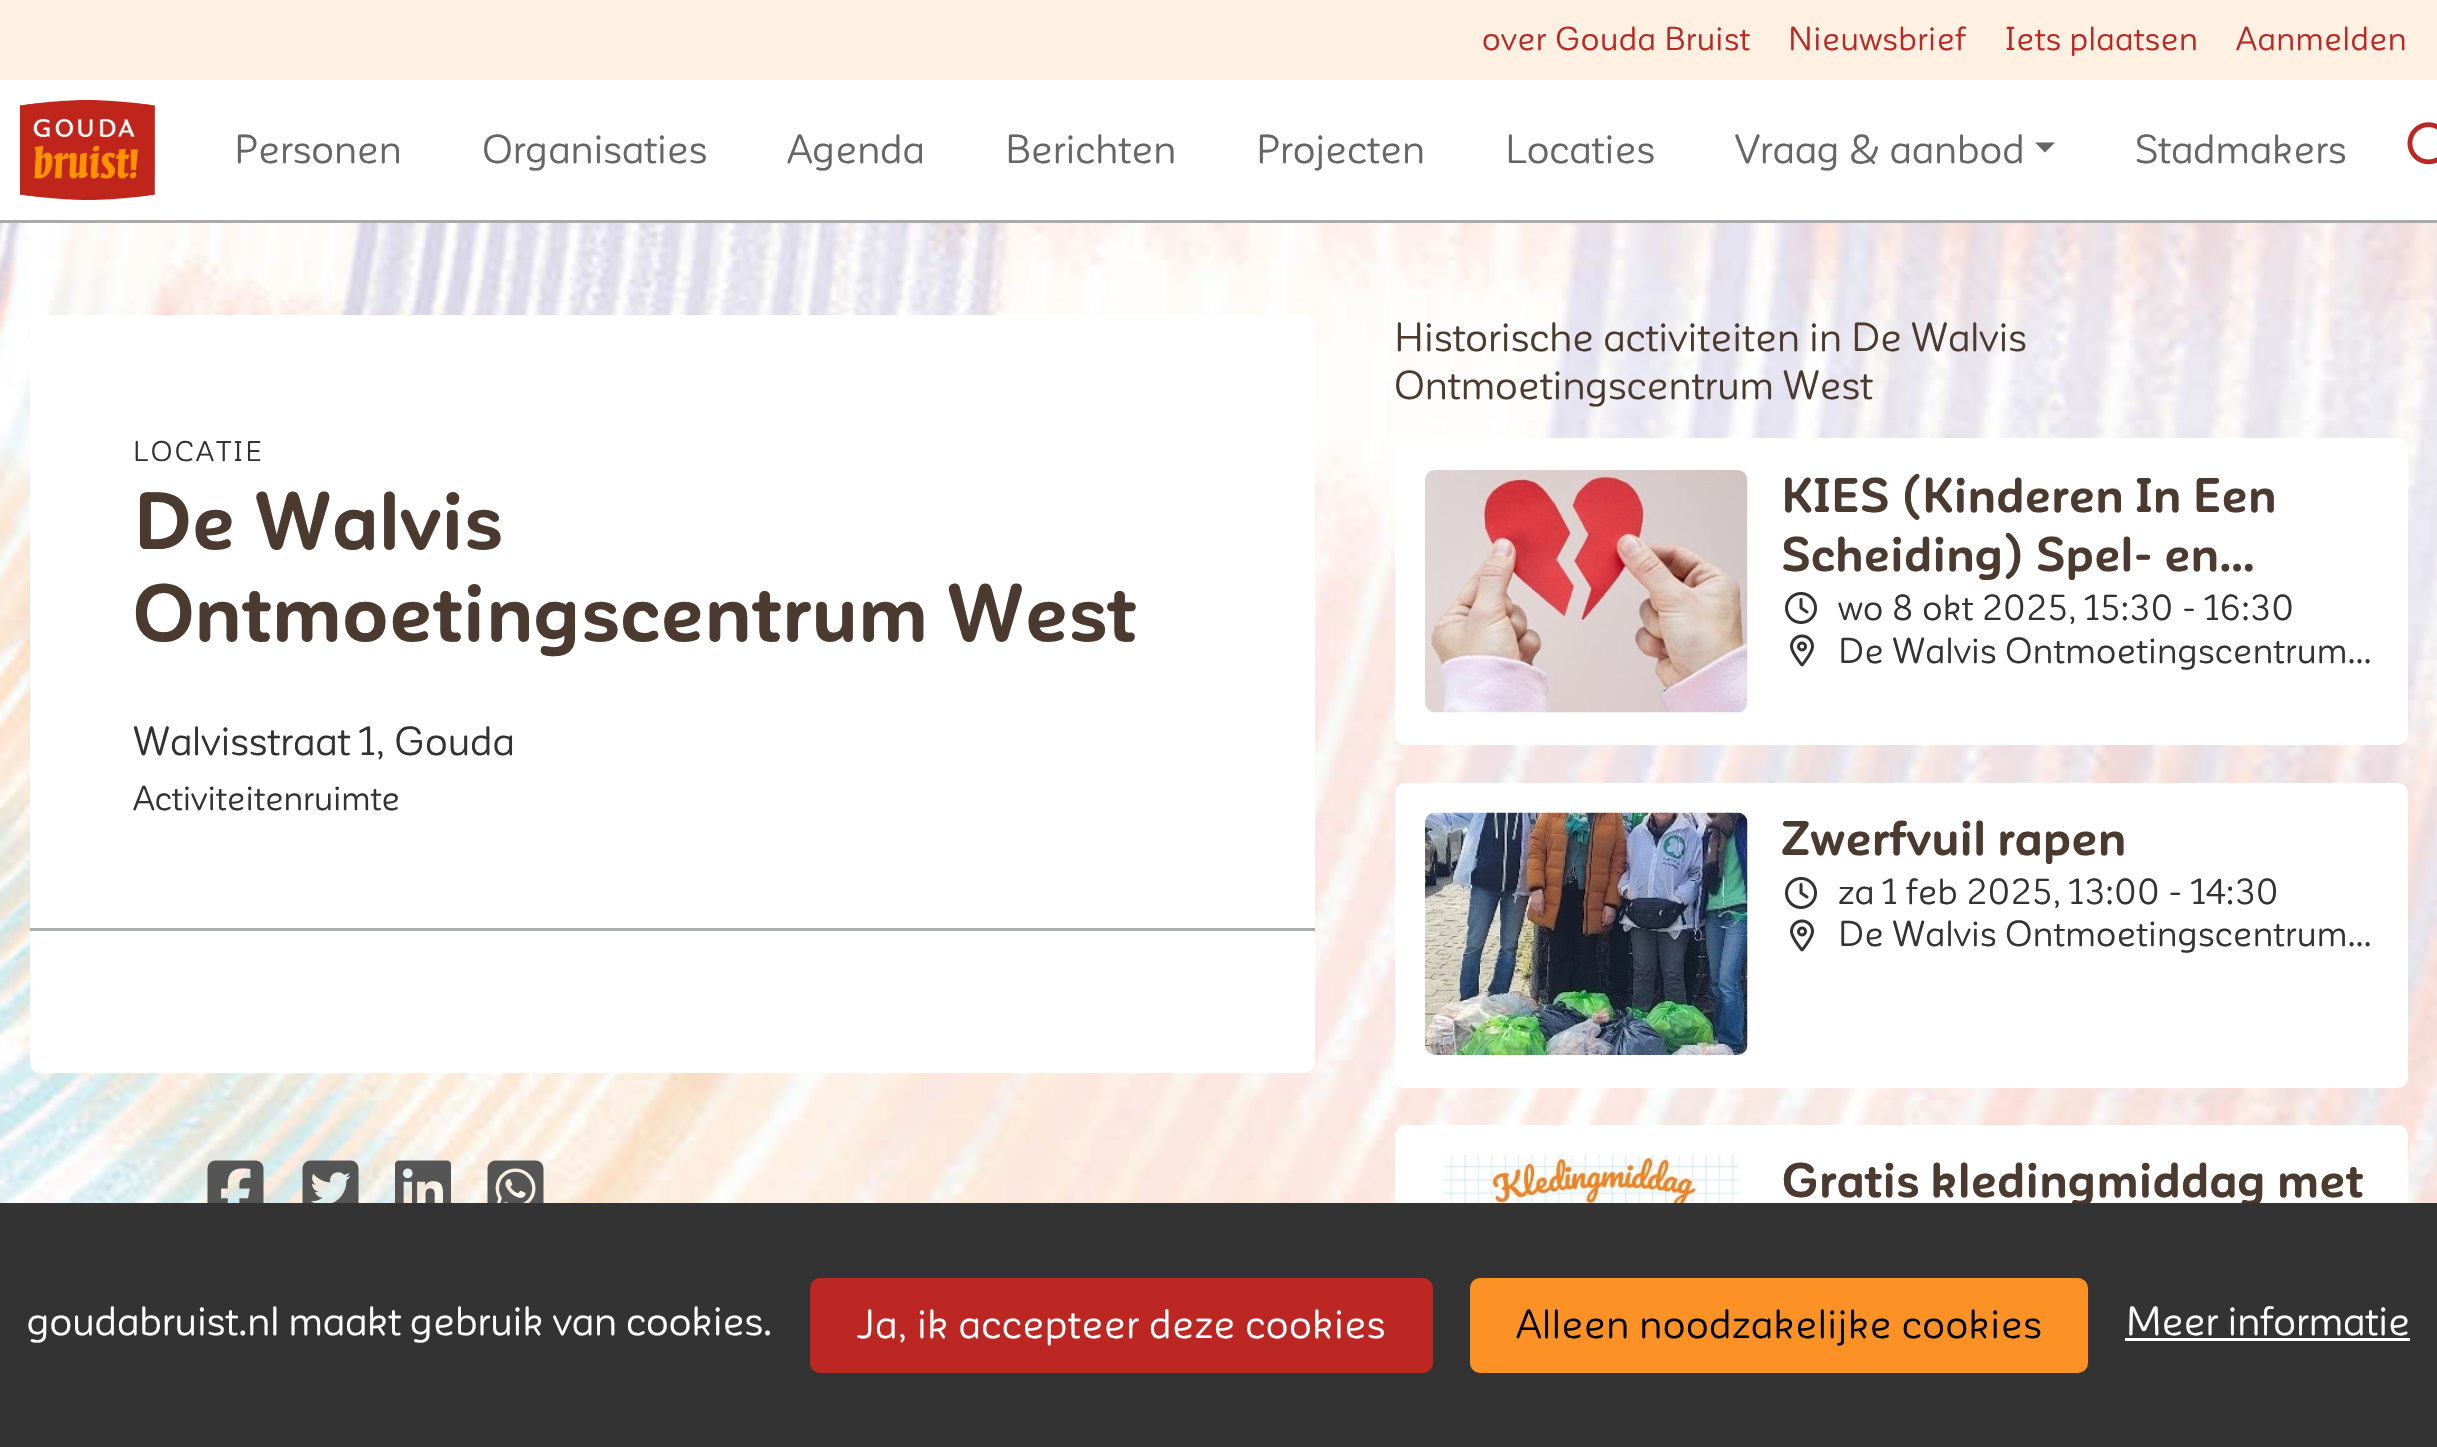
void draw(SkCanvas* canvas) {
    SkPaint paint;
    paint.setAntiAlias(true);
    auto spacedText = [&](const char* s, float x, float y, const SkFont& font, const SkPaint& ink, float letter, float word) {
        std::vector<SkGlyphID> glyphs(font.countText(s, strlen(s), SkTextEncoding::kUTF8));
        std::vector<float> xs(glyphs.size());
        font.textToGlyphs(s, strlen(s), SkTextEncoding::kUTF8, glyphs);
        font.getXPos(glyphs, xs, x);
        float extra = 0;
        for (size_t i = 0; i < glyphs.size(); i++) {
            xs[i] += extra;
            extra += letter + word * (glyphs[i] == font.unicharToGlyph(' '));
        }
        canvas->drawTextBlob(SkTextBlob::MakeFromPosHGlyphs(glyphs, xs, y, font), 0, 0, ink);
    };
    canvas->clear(0xFFFFFFFF);
    canvas->drawImageRect(SkImages::DeferredFromEncodedData(SkData::MakeFromFileName("img1.png")), SkRect::MakeXYWH(0, 223, 2437, 980), SkSamplingOptions());
    paint.setColor(0xFFFFF1E2);
    canvas->drawRect(SkRect::MakeXYWH(0, 0, 2437, 80), paint);
    SkFont font1(fontMgr->matchFamilyStyle("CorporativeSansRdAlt", SkFontStyle::Normal()), 32.75f);
    font1.setSubpixel(true);
    paint.setColor(0xFFBD2723);
    spacedText("over Gouda Bruist", 1482, 50, font1, paint, 0.5f, 0);
    spacedText("Nieuwsbrief", 1788, 50, font1, paint, 0.5f, 0);
    spacedText("Iets plaatsen", 2005, 50, font1, paint, 0.5f, 0);
    spacedText("Aanmelden", 2236, 50, font1, paint, 0.5f, 0);
    paint.setColor(0xFFAAAAAA);
    canvas->drawRect(SkRect::MakeXYWH(0, 220, 2437, 3), paint);
    canvas->drawImageRect(SkImages::DeferredFromEncodedData(SkData::MakeFromFileName("img2.png")), SkRect::MakeXYWH(19, 100, 136, 100), SkSamplingOptions());
    SkFont font2(fontMgr->matchFamilyStyle("CorporativeSansRdAlt", SkFontStyle::Normal()), 40);
    font2.setSubpixel(true);
    paint.setColor(0xFF666666);
    canvas->drawString("Personen", 234, 163, font2, paint);
    canvas->drawString("Organisaties", 482, 163, font2, paint);
    canvas->drawString("Agenda", 787, 163, font2, paint);
    canvas->drawString("Berichten", 1005, 163, font2, paint);
    canvas->drawString("Projecten", 1256, 163, font2, paint);
    canvas->drawString("Locaties", 1505, 163, font2, paint);
    canvas->drawString("Vraag & aanbod", 1735, 163, font2, paint);
    canvas->drawPath(SkPathBuilder().moveTo(2035, 142.5f).lineTo(2055, 142.5f).lineTo(2045, 152.5f).close().detach(), paint);
    canvas->drawString("Stadmakers", 2135, 163, font2, paint);
    canvas->drawImageRect(SkImages::DeferredFromEncodedData(SkData::MakeFromFileName("img3.png")), SkRect::MakeXYWH(2407, 122, 30, 43), SkSamplingOptions());
    paint.setColor(0xFFFFFFFF);
    canvas->drawRoundRect(SkRect::MakeXYWH(30, 315, 1285, 758), 10, 10, paint);
    SkFont font3(fontMgr->matchFamilyStyle("CorporativeSansRdAlt", SkFontStyle::Normal()), 28);
    font3.setSubpixel(true);
    paint.setColor(0xFF333333);
    spacedText("LOCATIE", 133, 461, font3, paint, 2.5f, 0);
    SkFont font4(fontMgr->matchFamilyStyle("CorporativeSansRdAlt", SkFontStyle::Bold()), 80);
    font4.setSubpixel(true);
    paint.setColor(0xFF4B3A2F);
    canvas->drawString("De Walvis", 133, 549, font4, paint);
    canvas->drawString("Ontmoetingscentrum West", 133, 641, font4, paint);
    paint.setColor(0xFF333333);
    canvas->drawString("Walvisstraat 1, Gouda", 133, 755, font2, paint);
    SkFont font5(fontMgr->matchFamilyStyle("CorporativeSansRdAlt", SkFontStyle::Normal()), 34);
    font5.setSubpixel(true);
    canvas->drawString("Activiteitenruimte", 133, 810, font5, paint);
    paint.setColor(0xFFACAEAE);
    canvas->drawRect(SkRect::MakeXYWH(30, 928, 1285, 3), paint);
    canvas->drawImageRect(SkImages::DeferredFromEncodedData(SkData::MakeFromFileName("img4.png")), SkRect::MakeXYWH(207, 1160, 57, 43), SkSamplingOptions());
    canvas->drawImageRect(SkImages::DeferredFromEncodedData(SkData::MakeFromFileName("img5.png")), SkRect::MakeXYWH(302, 1160, 57, 43), SkSamplingOptions());
    canvas->drawImageRect(SkImages::DeferredFromEncodedData(SkData::MakeFromFileName("img6.png")), SkRect::MakeXYWH(395, 1160, 56, 43), SkSamplingOptions());
    canvas->drawImageRect(SkImages::DeferredFromEncodedData(SkData::MakeFromFileName("img7.png")), SkRect::MakeXYWH(487, 1160, 57, 43), SkSamplingOptions());
    paint.setColor(0xFF4B3A2F);
    canvas->drawString("Historische activiteiten in De Walvis", 1394, 351, font2, paint);
    canvas->drawString("Ontmoetingscentrum West", 1394, 399, font2, paint);
    paint.setColor(0xFFFFFFFF);
    canvas->drawRoundRect(SkRect::MakeXYWH(1395, 438, 1013, 307), 10, 10, paint);
    canvas->drawImageRect(SkImages::DeferredFromEncodedData(SkData::MakeFromFileName("img8.png")), SkRect::MakeXYWH(1425, 470, 323, 243), SkSamplingOptions());
    SkFont font6(fontMgr->matchFamilyStyle("CorporativeSansRdAlt", SkFontStyle::Bold()), 48);
    font6.setSubpixel(true);
    paint.setColor(0xFF4B3A2F);
    canvas->drawString("KIES (Kinderen In Een", 1781, 512, font6, paint);
    canvas->drawString("Scheiding) Spel- en…", 1781, 571, font6, paint);
    canvas->drawImageRect(SkImages::DeferredFromEncodedData(SkData::MakeFromFileName("img9.png")), SkRect::MakeXYWH(1785, 592, 32, 32), SkSamplingOptions());
    SkFont font7(fontMgr->matchFamilyStyle("CorporativeSansRdAlt", SkFontStyle::Normal()), 35.6f);
    font7.setSubpixel(true);
    paint.setColor(0xFF333333);
    spacedText("wo 8 okt 2025, 15:30 - 16:30", 1838, 620, font7, paint, 0.25f, 0);
    canvas->drawImageRect(SkImages::DeferredFromEncodedData(SkData::MakeFromFileName("img10.png")), SkRect::MakeXYWH(1790, 634, 24, 33), SkSamplingOptions());
    spacedText("De Walvis Ontmoetingscentrum…", 1838, 663, font7, paint, 0.25f, 0);
    paint.setColor(0xFFFFFFFF);
    canvas->drawRoundRect(SkRect::MakeXYWH(1395, 783, 1013, 305), 10, 10, paint);
    canvas->drawImageRect(SkImages::DeferredFromEncodedData(SkData::MakeFromFileName("img11.png")), SkRect::MakeXYWH(1425, 812, 323, 243), SkSamplingOptions());
    paint.setColor(0xFF4B3A2F);
    canvas->drawString("Zwerfvuil rapen", 1781, 855, font6, paint);
    canvas->drawImageRect(SkImages::DeferredFromEncodedData(SkData::MakeFromFileName("img9.png")), SkRect::MakeXYWH(1785, 877, 32, 32), SkSamplingOptions());
    paint.setColor(0xFF333333);
    spacedText("za 1 feb 2025, 13:00 - 14:30", 1838, 904, font7, paint, 0.25f, 0);
    canvas->drawImageRect(SkImages::DeferredFromEncodedData(SkData::MakeFromFileName("img10.png")), SkRect::MakeXYWH(1790, 919, 24, 33), SkSamplingOptions());
    spacedText("De Walvis Ontmoetingscentrum…", 1838, 946, font7, paint, 0.25f, 0);
    paint.setColor(0xFFFFFFFF);
    canvas->drawRoundRect(SkRect::MakeXYWH(1395, 1125, 1013, 305), 10, 10, paint);
    canvas->drawImageRect(SkImages::DeferredFromEncodedData(SkData::MakeFromFileName("img12.png")), SkRect::MakeXYWH(1425, 1155, 319, 48), SkSamplingOptions());
    paint.setColor(0xFF4B3A2F);
    canvas->drawString("Gratis kledingmiddag met", 1781, 1197, font6, paint);
    paint.setColor(0xFF333333);
    canvas->drawRect(SkRect::MakeXYWH(0, 1203, 2437, 244), paint);
    paint.setColor(0xFFFFFFFF);
    canvas->drawString("goudabruist.nl maakt gebruik van cookies.", 27, 1335, font2, paint);
    paint.setColor(0xFFBD2723);
    canvas->drawRoundRect(SkRect::MakeXYWH(811.5f, 1279.5f, 620, 92), 8.5f, 8.5f, paint);
    paint.setStyle(SkPaint::kStroke_Style);
    paint.setStrokeWidth(3);
    canvas->drawRoundRect(SkRect::MakeXYWH(811.5f, 1279.5f, 620, 92), 8.5f, 8.5f, paint);
    paint.setStyle(SkPaint::kFill_Style);
    paint.setColor(0xFFFFFFFF);
    spacedText("Ja, ik accepteer deze cookies", 857, 1338, font2, paint, 0.5f, 0);
    paint.setColor(0xFFFC9226);
    canvas->drawRoundRect(SkRect::MakeXYWH(1471.5f, 1279.5f, 615, 92), 8.5f, 8.5f, paint);
    paint.setStyle(SkPaint::kStroke_Style);
    canvas->drawRoundRect(SkRect::MakeXYWH(1471.5f, 1279.5f, 615, 92), 8.5f, 8.5f, paint);
    paint.setStyle(SkPaint::kFill_Style);
    paint.setColor(0xFF000000);
    spacedText("Alleen noodzakelijke cookies", 1516, 1338, font2, paint, 0.5f, 0);
    paint.setColor(0xFFFFFFFF);
    canvas->drawString("Meer informatie", 2126, 1335, font2, paint);
    canvas->drawRect(SkRect::MakeXYWH(2125, 1338, 285, 3), paint);
}
